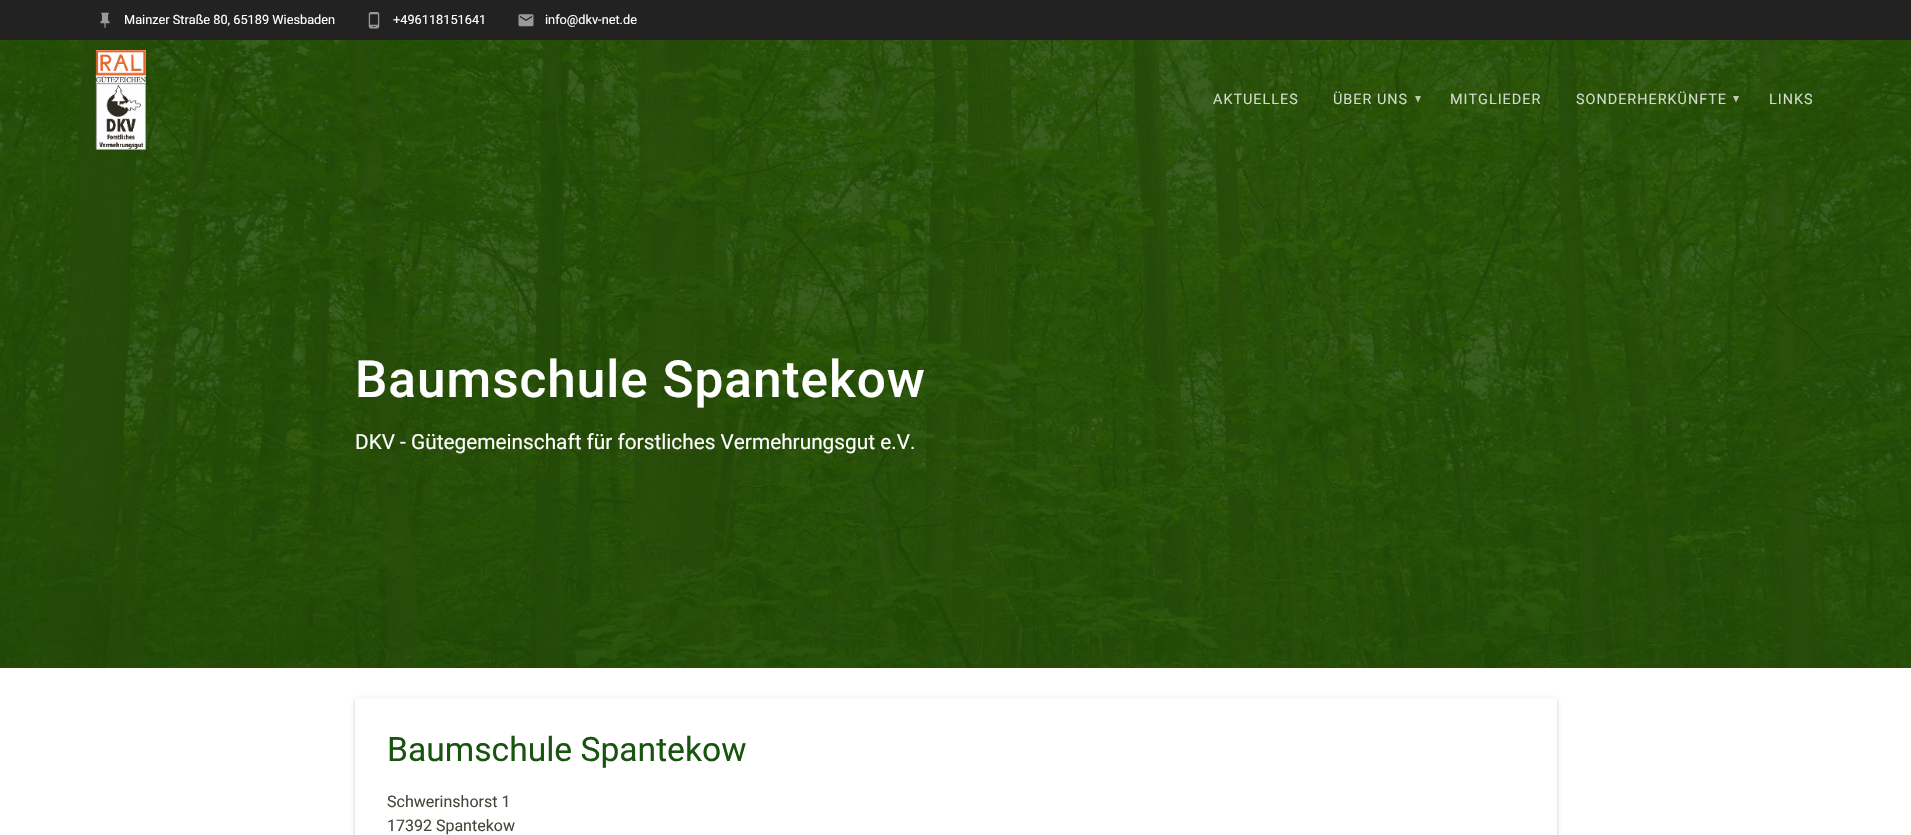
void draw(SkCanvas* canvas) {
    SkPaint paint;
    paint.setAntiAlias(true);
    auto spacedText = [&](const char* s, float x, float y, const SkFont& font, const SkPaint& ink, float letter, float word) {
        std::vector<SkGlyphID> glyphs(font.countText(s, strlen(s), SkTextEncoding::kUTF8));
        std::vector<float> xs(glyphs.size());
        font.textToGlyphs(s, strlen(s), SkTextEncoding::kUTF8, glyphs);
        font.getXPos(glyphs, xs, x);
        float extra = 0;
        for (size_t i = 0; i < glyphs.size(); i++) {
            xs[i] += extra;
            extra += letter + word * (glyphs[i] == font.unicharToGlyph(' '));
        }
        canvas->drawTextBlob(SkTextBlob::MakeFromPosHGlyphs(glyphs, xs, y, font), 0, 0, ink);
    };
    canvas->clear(0xFFFFFFFF);
    paint.setColor(0xFF222222);
    canvas->drawRect(SkRect::MakeXYWH(0, 0, 1911, 40), paint);
    canvas->drawImageRect(SkImages::DeferredFromEncodedData(SkData::MakeFromFileName("img1.png")), SkRect::MakeXYWH(100, 12, 10, 16), SkSamplingOptions());
    SkFont font1(fontMgr->matchFamilyStyle("Roboto", SkFontStyle::Normal()), 12.75f);
    font1.setSubpixel(true);
    paint.setColor(0xFFFFFFFF);
    canvas->drawString("Mainzer Straße 80, 65189 Wiesbaden", 124, 24, font1, paint);
    canvas->drawImageRect(SkImages::DeferredFromEncodedData(SkData::MakeFromFileName("img2.png")), SkRect::MakeXYWH(368, 12, 12, 17), SkSamplingOptions());
    canvas->drawString("+496118151641", 393, 24, font1, paint);
    canvas->drawImageRect(SkImages::DeferredFromEncodedData(SkData::MakeFromFileName("img3.png")), SkRect::MakeXYWH(518, 14, 16, 13), SkSamplingOptions());
    canvas->drawString("info@dkv-net.de", 545, 24, font1, paint);
    canvas->drawImageRect(SkImages::DeferredFromEncodedData(SkData::MakeFromFileName("img5.png")), SkRect::MakeXYWH(0, 40, 1911, 628), SkSamplingOptions());
    canvas->drawImageRect(SkImages::DeferredFromEncodedData(SkData::MakeFromFileName("img4.png")), SkRect::MakeXYWH(95, 50, 51, 100), SkSamplingOptions());
    SkFont font2(fontMgr->matchFamilyStyle("Roboto", SkFontStyle::Normal()), 14.4f);
    font2.setSubpixel(true);
    paint.setColor(0xFFD2DBCC);
    spacedText("AKTUELLES", 1213, 104, font2, paint, 1, 0);
    spacedText("ÜBER UNS", 1333, 104, font2, paint, 1, 0);
    paint.setColor(0xB5FFFFFF);
    canvas->drawPath(SkPathBuilder().moveTo(1415, 96).lineTo(1418, 102.5f).lineTo(1421, 96).close().detach(), paint);
    paint.setColor(0xFFD2DBCC);
    spacedText("MITGLIEDER", 1450, 104, font2, paint, 1, 0);
    spacedText("SONDERHERKÜNFTE", 1576, 104, font2, paint, 1, 0);
    paint.setColor(0xB5FFFFFF);
    canvas->drawPath(SkPathBuilder().moveTo(1733, 96).lineTo(1736, 102.5f).lineTo(1739, 96).close().detach(), paint);
    paint.setColor(0xFFD2DBCC);
    spacedText("LINKS", 1769, 104, font2, paint, 1, 0);
    SkFont font3(fontMgr->matchFamilyStyle("Roboto", SkFontStyle(500, SkFontStyle::kNormal_Width, SkFontStyle::kUpright_Slant)), 51.25f);
    font3.setSubpixel(true);
    paint.setColor(0xFFFFFFFF);
    spacedText("Baumschule Spantekow", 355, 397, font3, paint, 1, 0);
    SkFont font4(fontMgr->matchFamilyStyle("Roboto", SkFontStyle::Normal()), 20.8f);
    font4.setSubpixel(true);
    canvas->drawString("DKV - Gütegemeinschaft für forstliches Vermehrungsgut e.V.", 355, 449, font4, paint);
    paint.setColor(0x1F000000);
    paint.setMaskFilter(SkMaskFilter::MakeBlur(kNormal_SkBlurStyle, 2.5f));
    canvas->drawRoundRect(SkRect::MakeXYWH(355, 699, 1202, 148), 4, 4, paint);
    paint.setMaskFilter(nullptr);
    paint.setColor(0x24000000);
    paint.setMaskFilter(SkMaskFilter::MakeBlur(kNormal_SkBlurStyle, 1));
    canvas->drawRoundRect(SkRect::MakeXYWH(355, 700, 1202, 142), 4, 4, paint);
    paint.setMaskFilter(nullptr);
    paint.setColor(0xFFFFFFFF);
    canvas->drawRoundRect(SkRect::MakeXYWH(355, 698, 1202, 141), 4, 4, paint);
    SkFont font5(fontMgr->matchFamilyStyle("Roboto", SkFontStyle::Normal()), 33.6f);
    font5.setSubpixel(true);
    paint.setColor(0xFF18540F);
    canvas->drawString("Baumschule Spantekow", 387, 761, font5, paint);
    SkFont font6(fontMgr->matchFamilyStyle("Roboto", SkFontStyle::Normal()), 16);
    font6.setSubpixel(true);
    paint.setColor(0xFF42483C);
    canvas->drawString("Schwerinshorst 1", 387, 807, font6, paint);
    canvas->drawString("17392 Spantekow", 387, 831, font6, paint);
}
